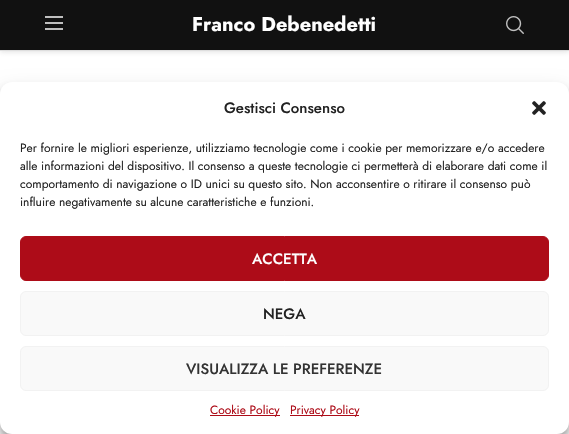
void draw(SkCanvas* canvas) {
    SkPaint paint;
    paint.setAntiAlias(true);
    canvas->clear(0xFFFFFFFF);
    paint.setColor(0x75BEBEBE);
    paint.setMaskFilter(SkMaskFilter::MakeBlur(kNormal_SkBlurStyle, 2.5f));
    canvas->drawRect(SkRect::MakeXYWH(0, 1, 569, 51), paint);
    paint.setMaskFilter(nullptr);
    paint.setColor(0xFF111111);
    canvas->drawRect(SkRect::MakeXYWH(0, 0, 569, 50), paint);
    paint.setColor(0xFFDEDEDE);
    canvas->drawRect(SkRect::MakeXYWH(0, 50, 569, 1), paint);
    paint.setColor(0xFFBFBFBF);
    canvas->drawRect(SkRect::MakeXYWH(45, 16, 18, 2), paint);
    canvas->drawRect(SkRect::MakeXYWH(45, 22, 18, 2), paint);
    canvas->drawRect(SkRect::MakeXYWH(45, 28, 18, 2), paint);
    SkFont font1(fontMgr->matchFamilyStyle("Jost", SkFontStyle::Bold()), 20);
    font1.setSubpixel(true);
    paint.setColor(0xFFFFFFFF);
    canvas->drawString("Franco Debenedetti", 192, 31, font1, paint);
    canvas->drawImageRect(SkImages::DeferredFromEncodedData(SkData::MakeFromFileName("img1.png")), SkRect::MakeXYWH(506, 16, 18, 18), SkSamplingOptions());
    paint.setColor(0x3B000000);
    paint.setMaskFilter(SkMaskFilter::MakeBlur(kNormal_SkBlurStyle, 3));
    canvas->drawRoundRect(SkRect::MakeXYWH(0, 88, 569, 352), 12, 12, paint);
    paint.setMaskFilter(nullptr);
    paint.setColor(0x30000000);
    paint.setMaskFilter(SkMaskFilter::MakeBlur(kNormal_SkBlurStyle, 10));
    canvas->drawRoundRect(SkRect::MakeXYWH(0, 92, 569, 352), 12, 12, paint);
    paint.setMaskFilter(nullptr);
    paint.setColor(0xFFFFFFFF);
    canvas->drawRoundRect(SkRect::MakeXYWH(0, 82, 569, 352), 12, 12, paint);
    SkFont font2(fontMgr->matchFamilyStyle("Jost", SkFontStyle(500, SkFontStyle::kNormal_Width, SkFontStyle::kUpright_Slant)), 15);
    font2.setSubpixel(true);
    paint.setColor(0xFF222222);
    canvas->drawString("Gestisci Consenso", 224, 113, font2, paint);
    canvas->drawImageRect(SkImages::DeferredFromEncodedData(SkData::MakeFromFileName("img2.png")), SkRect::MakeXYWH(532, 101, 14, 14), SkSamplingOptions());
    SkFont font3(fontMgr->matchFamilyStyle("Jost", SkFontStyle::Normal()), 12);
    font3.setSubpixel(true);
    canvas->drawString("Per fornire le migliori esperienze, utilizziamo tecnologie come i cookie per memorizzare e/o accedere", 20, 152, font3, paint);
    canvas->drawString("alle informazioni del dispositivo. Il consenso a queste tecnologie ci permetterà di elaborare dati come il", 20, 170, font3, paint);
    canvas->drawString("comportamento di navigazione o ID unici su questo sito. Non acconsentire o ritirare il consenso può", 20, 188, font3, paint);
    canvas->drawString("influire negativamente su alcune caratteristiche e funzioni.", 20, 206, font3, paint);
    paint.setColor(0xFFAD0C18);
    canvas->drawRoundRect(SkRect::MakeXYWH(20.5f, 236.5f, 528, 44), 5.5f, 5.5f, paint);
    paint.setStyle(SkPaint::kStroke_Style);
    paint.setStrokeWidth(1);
    canvas->drawRoundRect(SkRect::MakeXYWH(20.5f, 236.5f, 528, 44), 5.5f, 5.5f, paint);
    paint.setStyle(SkPaint::kFill_Style);
    paint.setColor(0xFFFFFFFF);
    canvas->drawString("ACCETTA", 252, 264, font2, paint);
    paint.setColor(0xFFF9F9F9);
    canvas->drawRoundRect(SkRect::MakeXYWH(20.5f, 291.5f, 528, 44), 5.5f, 5.5f, paint);
    paint.setStyle(SkPaint::kStroke_Style);
    paint.setColor(0xFFF2F2F2);
    canvas->drawRoundRect(SkRect::MakeXYWH(20.5f, 291.5f, 528, 44), 5.5f, 5.5f, paint);
    paint.setStyle(SkPaint::kFill_Style);
    paint.setColor(0xFF222222);
    canvas->drawString("NEGA", 263, 319, font2, paint);
    paint.setColor(0xFFF9F9F9);
    canvas->drawRoundRect(SkRect::MakeXYWH(20.5f, 346.5f, 528, 44), 5.5f, 5.5f, paint);
    paint.setStyle(SkPaint::kStroke_Style);
    paint.setColor(0xFFF2F2F2);
    canvas->drawRoundRect(SkRect::MakeXYWH(20.5f, 346.5f, 528, 44), 5.5f, 5.5f, paint);
    paint.setStyle(SkPaint::kFill_Style);
    paint.setColor(0xFF333333);
    canvas->drawString("VISUALIZZA LE PREFERENZE", 186, 374, font2, paint);
    paint.setColor(0xFFAD0C18);
    canvas->drawRect(SkRect::MakeXYWH(210, 415, 70, 1), paint);
    canvas->drawString("Cookie Policy", 210, 414, font3, paint);
    canvas->drawRect(SkRect::MakeXYWH(290, 415, 69, 1), paint);
    canvas->drawString("Privacy Policy", 290, 414, font3, paint);
}
